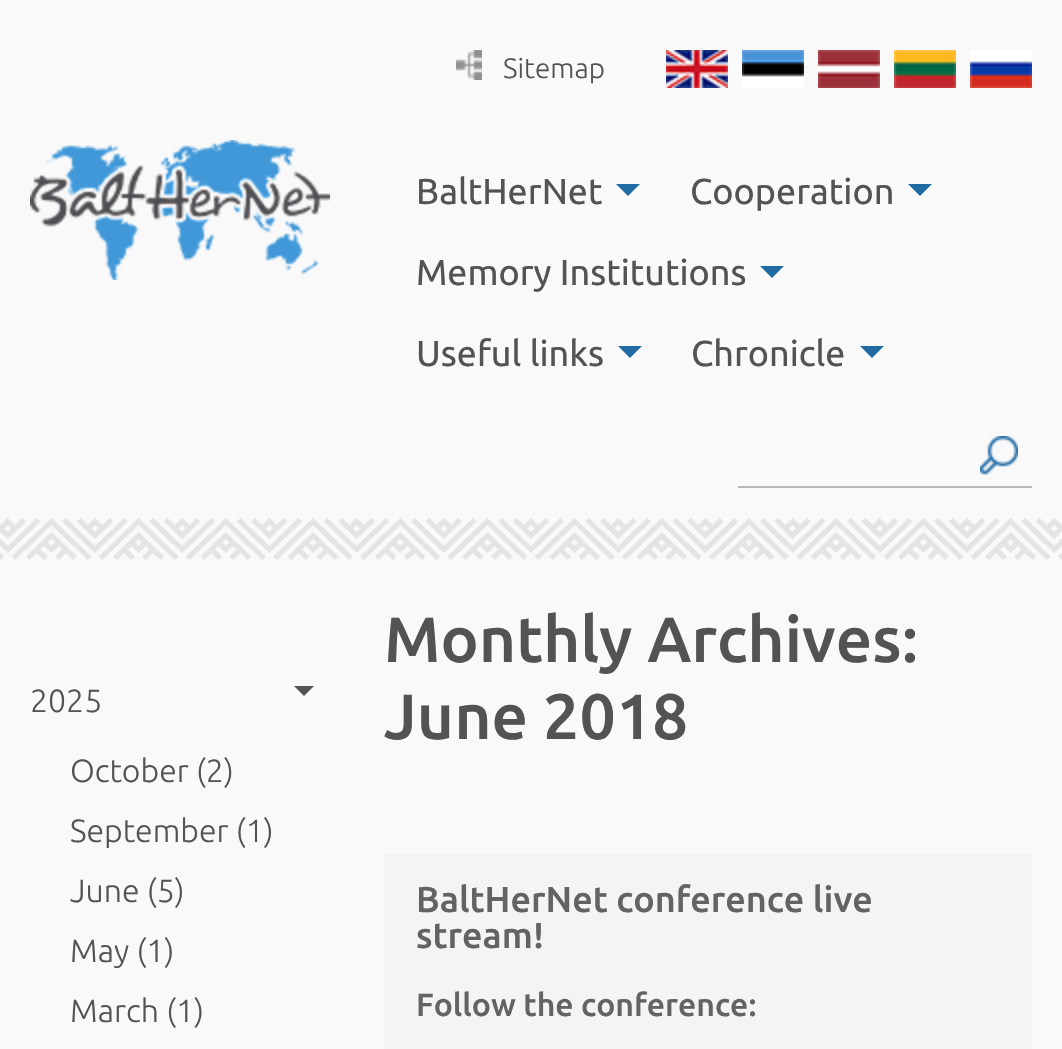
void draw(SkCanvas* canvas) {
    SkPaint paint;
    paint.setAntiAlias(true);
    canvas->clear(0xFFF9F9F9);
    canvas->drawImageRect(SkImages::DeferredFromEncodedData(SkData::MakeFromFileName("img1.png")), SkRect::MakeXYWH(0, 518, 1062, 42), SkSamplingOptions());
    canvas->drawImageRect(SkImages::DeferredFromEncodedData(SkData::MakeFromFileName("img2.png")), SkRect::MakeXYWH(30, 140, 300, 140), SkSamplingOptions());
    canvas->drawImageRect(SkImages::DeferredFromEncodedData(SkData::MakeFromFileName("img3.png")), SkRect::MakeXYWH(456, 50, 26, 30), SkSamplingOptions());
    SkFont font1(fontMgr->matchFamilyStyle("Ubuntu", SkFontStyle(300, SkFontStyle::kNormal_Width, SkFontStyle::kUpright_Slant)), 28);
    font1.setSubpixel(true);
    paint.setColor(0xFF535353);
    canvas->drawString("Sitemap", 503, 78, font1, paint);
    canvas->drawImageRect(SkImages::DeferredFromEncodedData(SkData::MakeFromFileName("img4.png")), SkRect::MakeXYWH(666, 50, 62, 38), SkSamplingOptions());
    canvas->drawImageRect(SkImages::DeferredFromEncodedData(SkData::MakeFromFileName("img5.png")), SkRect::MakeXYWH(742, 50, 62, 38), SkSamplingOptions());
    canvas->drawImageRect(SkImages::DeferredFromEncodedData(SkData::MakeFromFileName("img6.png")), SkRect::MakeXYWH(818, 50, 62, 38), SkSamplingOptions());
    canvas->drawImageRect(SkImages::DeferredFromEncodedData(SkData::MakeFromFileName("img7.png")), SkRect::MakeXYWH(894, 50, 62, 38), SkSamplingOptions());
    canvas->drawImageRect(SkImages::DeferredFromEncodedData(SkData::MakeFromFileName("img8.png")), SkRect::MakeXYWH(970, 50, 62, 38), SkSamplingOptions());
    SkFont font2(fontMgr->matchFamilyStyle("Ubuntu", SkFontStyle::Normal()), 36);
    font2.setSubpixel(true);
    canvas->drawString("BaltHerNet", 416, 204, font2, paint);
    paint.setColor(0xFF206BA4);
    canvas->drawPath(SkPathBuilder().moveTo(616, 184).lineTo(640, 184).lineTo(628, 196).close().detach(), paint);
    paint.setColor(0xFF535353);
    canvas->drawString("Cooperation", 690, 204, font2, paint);
    paint.setColor(0xFF206BA4);
    canvas->drawPath(SkPathBuilder().moveTo(908, 184).lineTo(932, 184).lineTo(920, 196).close().detach(), paint);
    paint.setColor(0xFF535353);
    canvas->drawString("Memory Institutions", 416, 285, font2, paint);
    paint.setColor(0xFF206BA4);
    canvas->drawPath(SkPathBuilder().moveTo(760, 266).lineTo(784, 266).lineTo(772, 278).close().detach(), paint);
    paint.setColor(0xFF535353);
    canvas->drawString("Useful links", 416, 366, font2, paint);
    paint.setColor(0xFF206BA4);
    canvas->drawPath(SkPathBuilder().moveTo(618, 346).lineTo(642, 346).lineTo(630, 358).close().detach(), paint);
    paint.setColor(0xFF535353);
    canvas->drawString("Chronicle", 691, 366, font2, paint);
    paint.setColor(0xFF206BA4);
    canvas->drawPath(SkPathBuilder().moveTo(860, 346).lineTo(884, 346).lineTo(872, 358).close().detach(), paint);
    canvas->drawImageRect(SkImages::DeferredFromEncodedData(SkData::MakeFromFileName("img9.png")), SkRect::MakeXYWH(980, 436, 38, 39), SkSamplingOptions());
    paint.setColor(0xFFB9B9B9);
    canvas->drawRect(SkRect::MakeXYWH(738, 486, 294, 2), paint);
    SkFont font3(fontMgr->matchFamilyStyle("Ubuntu", SkFontStyle(300, SkFontStyle::kNormal_Width, SkFontStyle::kUpright_Slant)), 32);
    font3.setSubpixel(true);
    paint.setColor(0xFF535353);
    canvas->drawString("2025", 30, 712, font3, paint);
    canvas->drawPath(SkPathBuilder().moveTo(294, 686).lineTo(314, 686).lineTo(304, 696).close().detach(), paint);
    canvas->drawString("October (2)", 70, 782, font3, paint);
    canvas->drawString("September (1)", 70, 842, font3, paint);
    canvas->drawString("June (5)", 70, 902, font3, paint);
    canvas->drawString("May (1)", 70, 962, font3, paint);
    canvas->drawString("March (1)", 70, 1022, font3, paint);
    SkFont font4(fontMgr->matchFamilyStyle("Ubuntu", SkFontStyle(500, SkFontStyle::kNormal_Width, SkFontStyle::kUpright_Slant)), 64);
    font4.setSubpixel(true);
    canvas->drawString("Monthly Archives:", 384, 662, font4, paint);
    canvas->drawString("June 2018", 384, 739, font4, paint);
    paint.setColor(0xFFF4F4F4);
    canvas->drawRect(SkRect::MakeXYWH(384, 854, 648, 195), paint);
    SkFont font5(fontMgr->matchFamilyStyle("Ubuntu", SkFontStyle(500, SkFontStyle::kNormal_Width, SkFontStyle::kUpright_Slant)), 36);
    font5.setSubpixel(true);
    paint.setColor(0xFF636363);
    canvas->drawString("BaltHerNet conference live", 416, 912, font5, paint);
    canvas->drawString("stream!", 416, 948, font5, paint);
    SkFont font6(fontMgr->matchFamilyStyle("Ubuntu", SkFontStyle(500, SkFontStyle::kNormal_Width, SkFontStyle::kUpright_Slant)), 32);
    font6.setSubpixel(true);
    canvas->drawString("Follow the conference:", 416, 1016, font6, paint);
}
